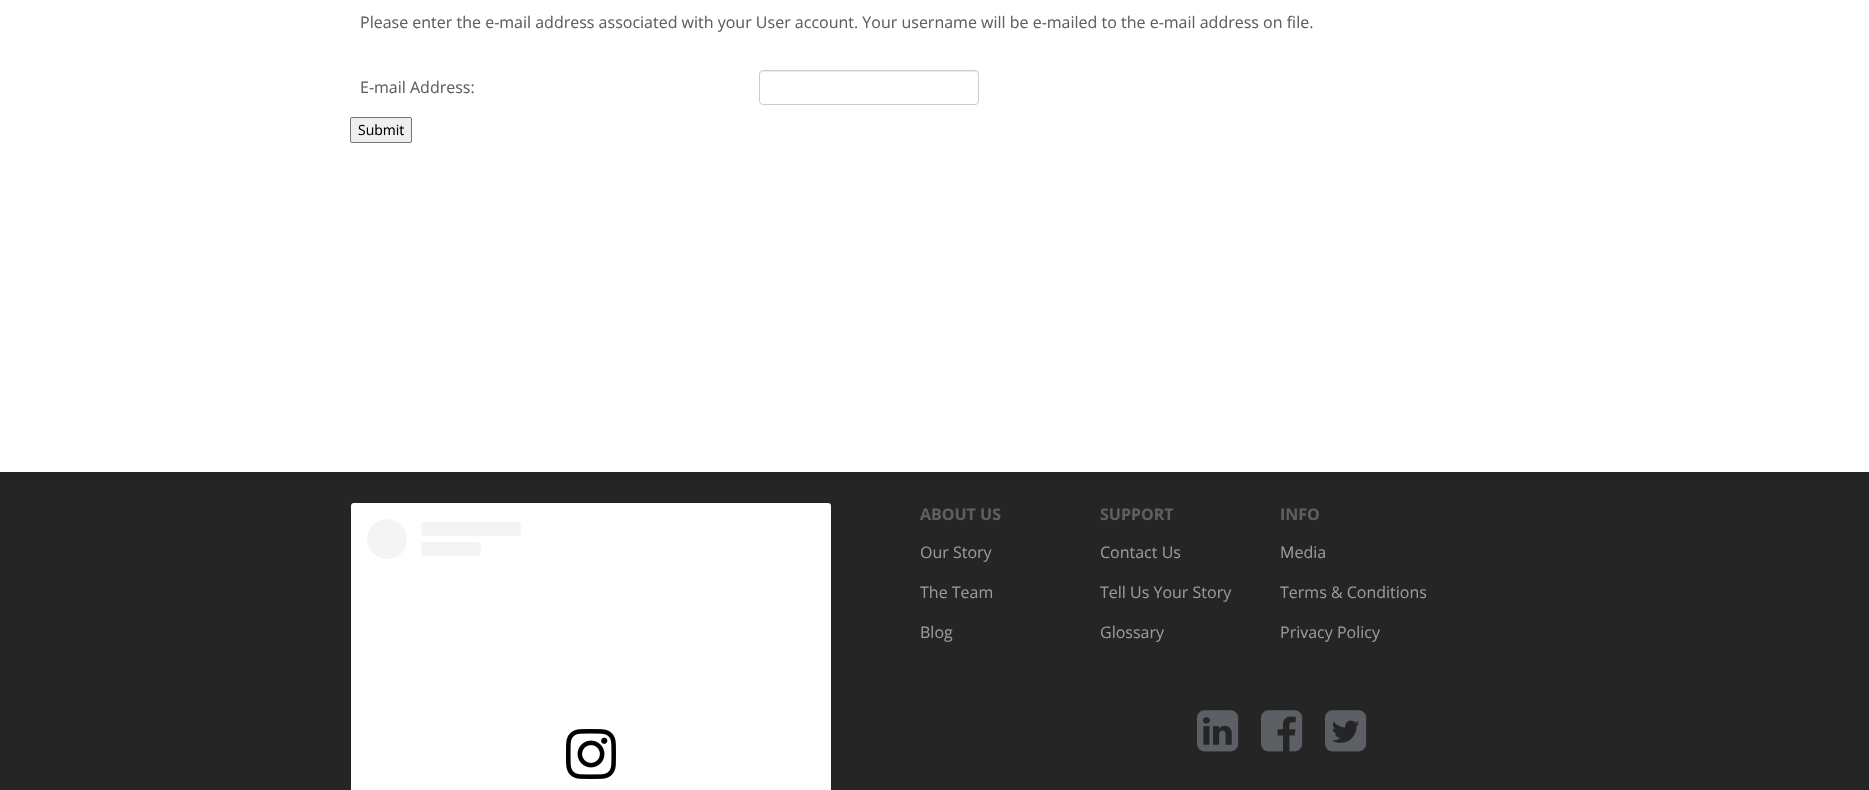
void draw(SkCanvas* canvas) {
    SkPaint paint;
    paint.setAntiAlias(true);
    canvas->clear(0xFFFFFFFF);
    SkFont font1(fontMgr->matchFamilyStyle("Open Sans", SkFontStyle::Normal()), 16);
    font1.setSubpixel(true);
    paint.setColor(0xFF5C6064);
    canvas->drawString("Please enter the e-mail address associated with your User account. Your username will be e-mailed to the e-mail address on file.", 360, 28, font1, paint);
    canvas->drawString("E-mail Address:", 360, 93, font1, paint);
    paint.setColor(0xFFECECEC);
    canvas->drawPath(SkPathBuilder().moveTo(763, 72).lineTo(975, 72).cubicTo(977, 72, 978, 73, 978, 75).lineTo(978, 74).cubicTo(978, 72, 977, 71, 975, 71).lineTo(763, 71).cubicTo(761, 71, 760, 72, 760, 74).lineTo(760, 75).cubicTo(760, 73, 761, 72, 763, 72).close().detach(), paint);
    paint.setStyle(SkPaint::kStroke_Style);
    paint.setStrokeWidth(1);
    paint.setColor(0xFFCCCCCC);
    canvas->drawRoundRect(SkRect::MakeXYWH(759.5f, 70.5f, 219, 34), 3.5f, 3.5f, paint);
    paint.setStyle(SkPaint::kFill_Style);
    paint.setColor(0xFFEFEFEF);
    canvas->drawRoundRect(SkRect::MakeXYWH(350.5f, 117.5f, 61, 25), 1.5f, 1.5f, paint);
    paint.setStyle(SkPaint::kStroke_Style);
    paint.setColor(0xFF767676);
    canvas->drawRoundRect(SkRect::MakeXYWH(350.5f, 117.5f, 61, 25), 1.5f, 1.5f, paint);
    SkFont font2(fontMgr->matchFamilyStyle("Open Sans", SkFontStyle::Normal()), 14);
    font2.setSubpixel(true);
    paint.setStyle(SkPaint::kFill_Style);
    paint.setColor(0xFF000000);
    canvas->drawString("Submit", 358, 135, font2, paint);
    paint.setColor(0xFF252525);
    canvas->drawRect(SkRect::MakeXYWH(0, 472, 1869, 318), paint);
    paint.setColor(0x80000000);
    paint.setMaskFilter(SkMaskFilter::MakeBlur(kNormal_SkBlurStyle, 0.5f));
    canvas->drawRoundRect(SkRect::MakeXYWH(351, 503, 480, 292), 3, 3, paint);
    paint.setMaskFilter(nullptr);
    paint.setColor(0xFFFFFFFF);
    canvas->drawRoundRect(SkRect::MakeXYWH(351, 503, 480, 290), 3, 3, paint);
    paint.setColor(0xFFF4F4F4);
    canvas->drawCircle(387, 539, 20, paint);
    canvas->drawRoundRect(SkRect::MakeXYWH(421, 522, 100, 14), 4, 4, paint);
    canvas->drawRoundRect(SkRect::MakeXYWH(421, 542, 60, 14), 4, 4, paint);
    canvas->drawImageRect(SkImages::DeferredFromEncodedData(SkData::MakeFromFileName("img1.png")), SkRect::MakeXYWH(566, 729, 50, 50), SkSamplingOptions());
    SkFont font3(fontMgr->matchFamilyStyle("Open Sans", SkFontStyle::Bold()), 16);
    font3.setSubpixel(true);
    paint.setColor(0xFF5C6064);
    canvas->drawString("ABOUT US", 920, 520, font3, paint);
    canvas->drawString("SUPPORT", 1100, 520, font3, paint);
    canvas->drawString("INFO", 1280, 520, font3, paint);
    paint.setColor(0xFF999999);
    canvas->drawString("Our Story", 920, 558, font1, paint);
    canvas->drawString("The Team", 920, 598, font1, paint);
    canvas->drawString("Blog", 920, 638, font1, paint);
    canvas->drawString("Contact Us", 1100, 558, font1, paint);
    canvas->drawString("Tell Us Your Story", 1100, 598, font1, paint);
    canvas->drawString("Glossary", 1100, 638, font1, paint);
    canvas->drawString("Media", 1280, 558, font1, paint);
    canvas->drawString("Terms & Conditions", 1280, 598, font1, paint);
    canvas->drawString("Privacy Policy", 1280, 638, font1, paint);
    canvas->drawImageRect(SkImages::DeferredFromEncodedData(SkData::MakeFromFileName("img2.png")), SkRect::MakeXYWH(1197, 710, 42, 42), SkSamplingOptions());
    canvas->drawImageRect(SkImages::DeferredFromEncodedData(SkData::MakeFromFileName("img3.png")), SkRect::MakeXYWH(1261, 710, 42, 42), SkSamplingOptions());
    canvas->drawImageRect(SkImages::DeferredFromEncodedData(SkData::MakeFromFileName("img4.png")), SkRect::MakeXYWH(1325, 710, 42, 42), SkSamplingOptions());
}
